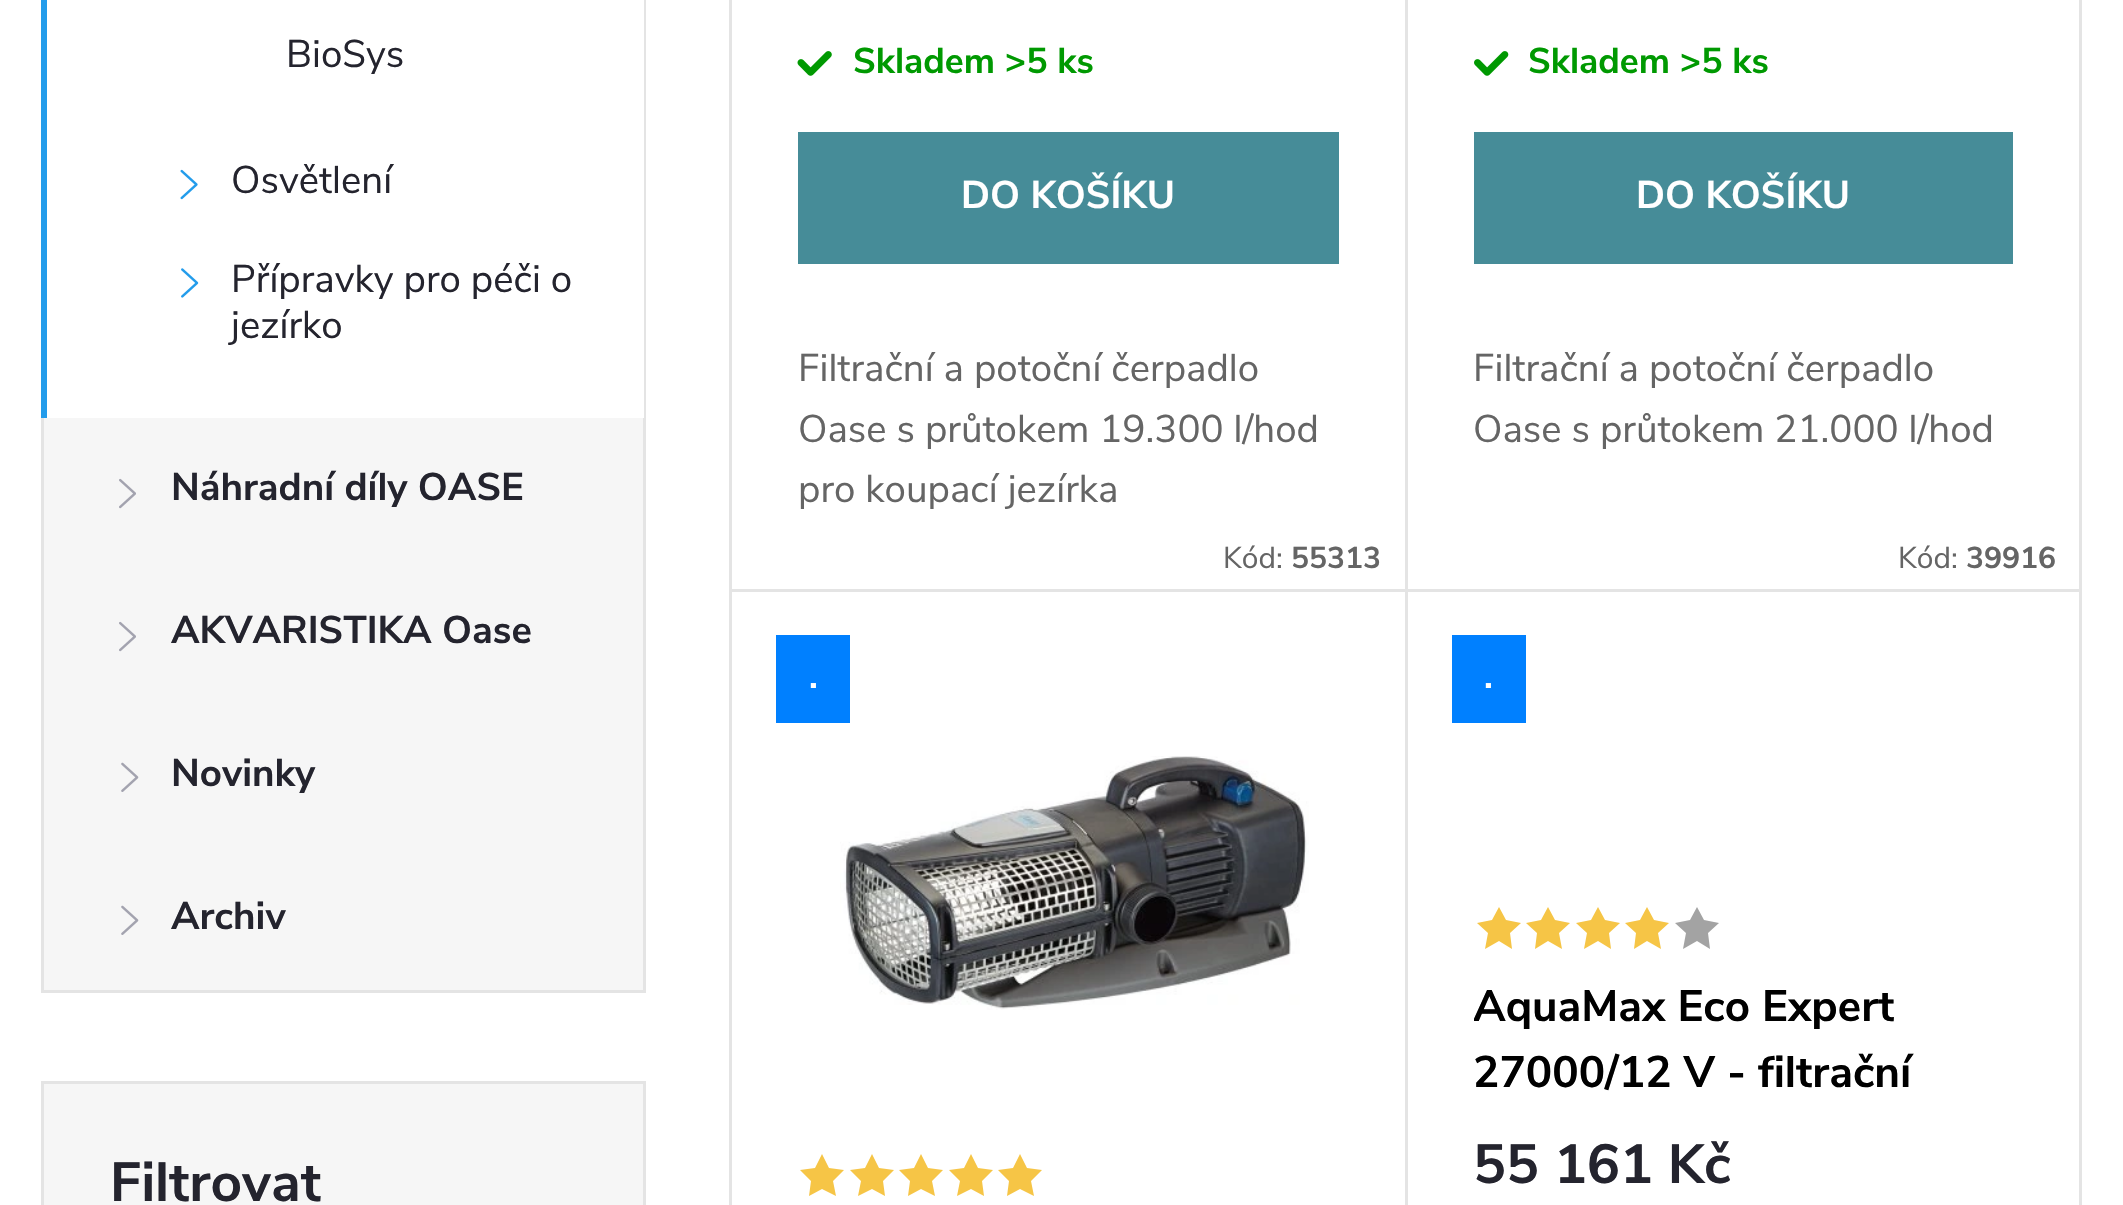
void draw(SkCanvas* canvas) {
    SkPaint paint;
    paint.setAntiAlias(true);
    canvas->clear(0xFFFFFFFF);
    paint.setColor(0xFFF6F6F6);
    canvas->drawRect(SkRect::MakeXYWH(44, 418, 599, 572), paint);
    paint.setStyle(SkPaint::kStroke_Style);
    paint.setStrokeWidth(3);
    paint.setColor(0xFFE4E4E4);
    canvas->drawRect(SkRect::MakeXYWH(42.5f, -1.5f, 602, 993), paint);
    paint.setStyle(SkPaint::kFill_Style);
    paint.setColor(0xFFFFFFFF);
    canvas->drawRect(SkRect::MakeXYWH(643, 0, 1, 418), paint);
    paint.setColor(0xFF239CEB);
    canvas->drawRect(SkRect::MakeXYWH(41, 0, 6, 418), paint);
    SkFont font1(fontMgr->matchFamilyStyle("Nunito Sans", SkFontStyle::Normal()), 38.5f);
    font1.setSubpixel(true);
    paint.setColor(0xFF24242E);
    canvas->drawString("BioSys", 286, 67, font1, paint);
    canvas->drawImageRect(SkImages::DeferredFromEncodedData(SkData::MakeFromFileName("img1.png")), SkRect::MakeXYWH(180, 169, 18, 31), SkSamplingOptions());
    canvas->drawString("Osvětlení", 231, 193, font1, paint);
    canvas->drawImageRect(SkImages::DeferredFromEncodedData(SkData::MakeFromFileName("img2.png")), SkRect::MakeXYWH(181, 268, 18, 30), SkSamplingOptions());
    canvas->drawString("Přípravky pro péči o", 231, 292, font1, paint);
    canvas->drawString("jezírko", 231, 338, font1, paint);
    canvas->drawImageRect(SkImages::DeferredFromEncodedData(SkData::MakeFromFileName("img3.png")), SkRect::MakeXYWH(119, 478, 17, 31), SkSamplingOptions());
    SkFont font2(fontMgr->matchFamilyStyle("Nunito Sans", SkFontStyle::Bold()), 38.5f);
    font2.setSubpixel(true);
    canvas->drawString("Náhradní díly OASE", 171, 500, font2, paint);
    canvas->drawImageRect(SkImages::DeferredFromEncodedData(SkData::MakeFromFileName("img3.png")), SkRect::MakeXYWH(119, 621, 17, 31), SkSamplingOptions());
    canvas->drawString("AKVARISTIKA Oase", 171, 643, font2, paint);
    canvas->drawImageRect(SkImages::DeferredFromEncodedData(SkData::MakeFromFileName("img4.png")), SkRect::MakeXYWH(121, 762, 18, 30), SkSamplingOptions());
    canvas->drawString("Novinky", 171, 786, font2, paint);
    canvas->drawImageRect(SkImages::DeferredFromEncodedData(SkData::MakeFromFileName("img4.png")), SkRect::MakeXYWH(121, 905, 18, 30), SkSamplingOptions());
    canvas->drawString("Archiv", 171, 929, font2, paint);
    paint.setColor(0xFFF6F6F6);
    canvas->drawRect(SkRect::MakeXYWH(42.5f, 1082.5f, 602, 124), paint);
    paint.setStyle(SkPaint::kStroke_Style);
    paint.setColor(0xFFE4E4E4);
    canvas->drawRect(SkRect::MakeXYWH(42.5f, 1082.5f, 602, 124), paint);
    SkFont font3(fontMgr->matchFamilyStyle("Nunito Sans", SkFontStyle::Bold()), 55);
    font3.setSubpixel(true);
    paint.setStyle(SkPaint::kFill_Style);
    paint.setColor(0xFF24242E);
    canvas->drawString("Filtrovat", 110, 1201, font3, paint);
    paint.setColor(0xFFE4E4E4);
    canvas->drawRect(SkRect::MakeXYWH(729, 0, 3, 1205), paint);
    canvas->drawRect(SkRect::MakeXYWH(1405, 0, 3, 591), paint);
    canvas->drawRect(SkRect::MakeXYWH(732, 589, 676, 3), paint);
    canvas->drawImageRect(SkImages::DeferredFromEncodedData(SkData::MakeFromFileName("img5.png")), SkRect::MakeXYWH(797, 51, 35, 25), SkSamplingOptions());
    SkFont font4(fontMgr->matchFamilyStyle("Nunito Sans", SkFontStyle::Bold()), 35.75f);
    font4.setSubpixel(true);
    paint.setColor(0xFF009901);
    canvas->drawString("Skladem >5 ks", 853, 73, font4, paint);
    paint.setColor(0xFF468C98);
    canvas->drawRect(SkRect::MakeXYWH(798, 132, 541, 132), paint);
    paint.setColor(0xFFFFFFFF);
    canvas->drawString("DO KOŠÍKU", 961, 208, font2, paint);
    paint.setColor(0xFF656565);
    canvas->drawString("Filtrační a potoční čerpadlo", 798, 381, font1, paint);
    canvas->drawString("Oase s průtokem 19.300 l/hod", 798, 442, font1, paint);
    canvas->drawString("pro koupací jezírka", 798, 502, font1, paint);
    SkFont font5(fontMgr->matchFamilyStyle("Nunito Sans", SkFontStyle::Normal()), 30);
    font5.setSubpixel(true);
    canvas->drawString("Kód:", 1223, 568, font5, paint);
    SkFont font6(fontMgr->matchFamilyStyle("Nunito Sans", SkFontStyle::Bold()), 30);
    font6.setSubpixel(true);
    canvas->drawString("55313", 1291, 568, font6, paint);
    paint.setColor(0xFFE4E4E4);
    canvas->drawRect(SkRect::MakeXYWH(2079, 0, 3, 591), paint);
    canvas->drawRect(SkRect::MakeXYWH(1408, 589, 674, 3), paint);
    canvas->drawImageRect(SkImages::DeferredFromEncodedData(SkData::MakeFromFileName("img6.png")), SkRect::MakeXYWH(1474, 51, 35, 25), SkSamplingOptions());
    paint.setColor(0xFF009901);
    canvas->drawString("Skladem >5 ks", 1528, 73, font4, paint);
    paint.setColor(0xFF468C98);
    canvas->drawRect(SkRect::MakeXYWH(1474, 132, 539, 132), paint);
    paint.setColor(0xFFFFFFFF);
    canvas->drawString("DO KOŠÍKU", 1636, 208, font2, paint);
    paint.setColor(0xFF656565);
    canvas->drawString("Filtrační a potoční čerpadlo", 1473, 381, font1, paint);
    canvas->drawString("Oase s průtokem 21.000 l/hod", 1473, 442, font1, paint);
    canvas->drawString("Kód:", 1898, 568, font5, paint);
    canvas->drawString("39916", 1966, 568, font6, paint);
    paint.setColor(0xFFE4E4E4);
    canvas->drawRect(SkRect::MakeXYWH(1405, 591, 3, 614), paint);
    paint.setColor(0xFF0080FF);
    canvas->drawRect(SkRect::MakeXYWH(776, 635, 74, 88), paint);
    paint.setColor(0xFFFFFFFF);
    canvas->drawString(".", 809, 688, font4, paint);
    canvas->drawImageRect(SkImages::DeferredFromEncodedData(SkData::MakeFromFileName("img7.png")), SkRect::MakeXYWH(840, 756, 469, 254), SkSamplingOptions());
    paint.setColor(0xFFF6C546);
    canvas->drawPath(SkPathBuilder().moveTo(822, 1189).lineTo(809, 1196).lineTo(811, 1181).lineTo(800, 1170).lineTo(815, 1168).lineTo(822, 1154).lineTo(829, 1168).lineTo(844, 1170).lineTo(833, 1181).lineTo(836, 1196).close().detach(), paint);
    canvas->drawPath(SkPathBuilder().moveTo(872, 1189).lineTo(858, 1196).lineTo(861, 1181).lineTo(850, 1170).lineTo(865, 1168).lineTo(872, 1154).lineTo(879, 1168).lineTo(894, 1170).lineTo(883, 1181).lineTo(885, 1196).close().detach(), paint);
    canvas->drawPath(SkPathBuilder().moveTo(921, 1189).lineTo(908, 1196).lineTo(910, 1181).lineTo(899, 1170).lineTo(914, 1168).lineTo(921, 1154).lineTo(928, 1168).lineTo(943, 1170).lineTo(932, 1181).lineTo(935, 1196).close().detach(), paint);
    canvas->drawPath(SkPathBuilder().moveTo(971, 1189).lineTo(957, 1196).lineTo(960, 1181).lineTo(949, 1170).lineTo(964, 1168).lineTo(971, 1154).lineTo(978, 1168).lineTo(993, 1170).lineTo(982, 1181).lineTo(984, 1196).close().detach(), paint);
    canvas->drawPath(SkPathBuilder().moveTo(1020, 1189).lineTo(1007, 1196).lineTo(1009, 1181).lineTo(998, 1170).lineTo(1013, 1168).lineTo(1020, 1154).lineTo(1027, 1168).lineTo(1042, 1170).lineTo(1031, 1181).lineTo(1034, 1196).close().detach(), paint);
    paint.setColor(0xFFE4E4E4);
    canvas->drawRect(SkRect::MakeXYWH(2079, 591, 3, 614), paint);
    paint.setColor(0xFF0080FF);
    canvas->drawRect(SkRect::MakeXYWH(1452, 635, 74, 88), paint);
    paint.setColor(0xFFFFFFFF);
    canvas->drawString(".", 1484, 688, font4, paint);
    paint.setColor(0xFFF6C546);
    canvas->drawPath(SkPathBuilder().moveTo(1499, 941).lineTo(1485, 949).lineTo(1488, 933).lineTo(1477, 923).lineTo(1492, 920).lineTo(1499, 907).lineTo(1506, 920).lineTo(1521, 923).lineTo(1510, 933).lineTo(1512, 949).close().detach(), paint);
    canvas->drawPath(SkPathBuilder().moveTo(1548, 941).lineTo(1535, 949).lineTo(1537, 933).lineTo(1526, 923).lineTo(1541, 920).lineTo(1548, 907).lineTo(1555, 920).lineTo(1570, 923).lineTo(1559, 933).lineTo(1562, 949).close().detach(), paint);
    canvas->drawPath(SkPathBuilder().moveTo(1598, 941).lineTo(1584, 949).lineTo(1587, 933).lineTo(1576, 923).lineTo(1591, 920).lineTo(1598, 907).lineTo(1605, 920).lineTo(1620, 923).lineTo(1609, 933).lineTo(1611, 949).close().detach(), paint);
    canvas->drawPath(SkPathBuilder().moveTo(1647, 941).lineTo(1634, 949).lineTo(1636, 933).lineTo(1625, 923).lineTo(1640, 920).lineTo(1647, 907).lineTo(1654, 920).lineTo(1669, 923).lineTo(1658, 933).lineTo(1661, 949).close().detach(), paint);
    paint.setColor(0xFFA3A3A3);
    canvas->drawPath(SkPathBuilder().moveTo(1697, 941).lineTo(1683, 949).lineTo(1686, 933).lineTo(1675, 923).lineTo(1690, 920).lineTo(1697, 907).lineTo(1704, 920).lineTo(1719, 923).lineTo(1708, 933).lineTo(1710, 949).close().detach(), paint);
    canvas->save();
    canvas->clipRect(SkRect::MakeXYWH(1474, 974, 539, 132));
    SkFont font7(fontMgr->matchFamilyStyle("Nunito Sans", SkFontStyle::Bold()), 44);
    font7.setSubpixel(true);
    paint.setColor(0xFF000000);
    canvas->drawString("AquaMax Eco Expert", 1473, 1021, font7, paint);
    canvas->restore();
    canvas->drawString("27000/12 V - filtrační", 1473, 1087, font7, paint);
    paint.setColor(0xFF24242E);
    canvas->drawString("55 161 Kč", 1473, 1183, font3, paint);
}
